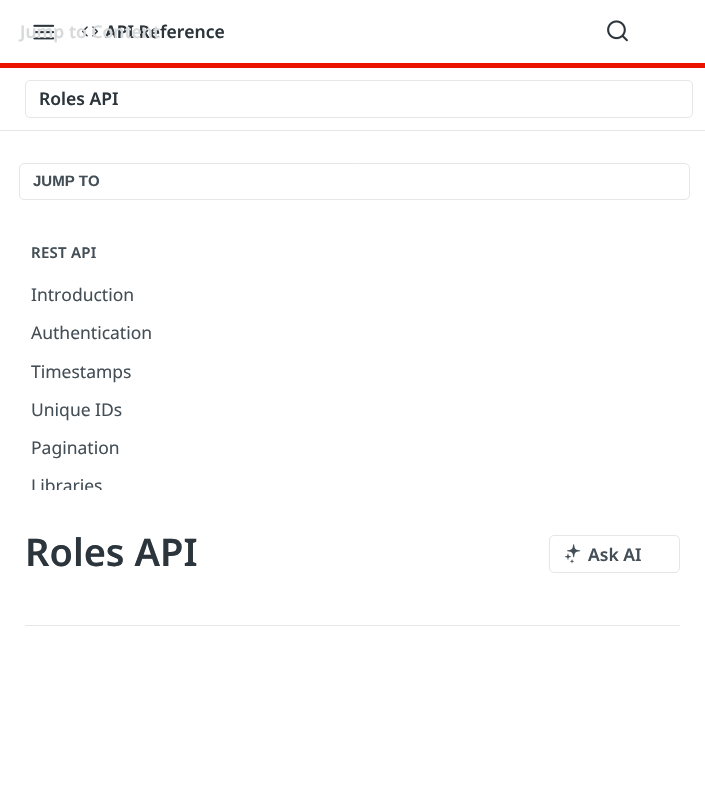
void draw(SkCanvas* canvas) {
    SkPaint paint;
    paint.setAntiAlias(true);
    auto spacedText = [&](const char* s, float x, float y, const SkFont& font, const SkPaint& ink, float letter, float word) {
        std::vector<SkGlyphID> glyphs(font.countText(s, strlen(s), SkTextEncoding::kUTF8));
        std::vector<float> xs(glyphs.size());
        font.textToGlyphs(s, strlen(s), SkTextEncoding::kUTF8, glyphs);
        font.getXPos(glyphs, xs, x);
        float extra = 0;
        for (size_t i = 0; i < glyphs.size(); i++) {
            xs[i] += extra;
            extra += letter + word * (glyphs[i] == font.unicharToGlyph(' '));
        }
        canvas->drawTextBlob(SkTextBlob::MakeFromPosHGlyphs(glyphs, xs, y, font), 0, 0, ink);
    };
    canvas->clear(0xFFFFFFFF);
    paint.setColor(0xFFE6E6E6);
    canvas->drawRect(SkRect::MakeXYWH(0, 130, 705, 1), paint);
    paint.setColor(0xFFEB1300);
    canvas->drawRect(SkRect::MakeXYWH(0, 63, 705, 5), paint);
    canvas->drawImageRect(SkImages::DeferredFromEncodedData(SkData::MakeFromFileName("img1.png")), SkRect::MakeXYWH(33, 24, 22, 16), SkSamplingOptions());
    canvas->drawImageRect(SkImages::DeferredFromEncodedData(SkData::MakeFromFileName("img2.png")), SkRect::MakeXYWH(82, 26, 16, 11), SkSamplingOptions());
    SkFont font1(fontMgr->matchFamilyStyle("Noto Sans", SkFontStyle(600, SkFontStyle::kNormal_Width, SkFontStyle::kUpright_Slant)), 17.5f);
    font1.setSubpixel(true);
    paint.setColor(0xFF2B353B);
    canvas->drawString("API Reference", 105, 38, font1, paint);
    paint.setColor(0xFFD7D9DA);
    canvas->drawString("Jump to Content", 20, 38, font1, paint);
    canvas->drawImageRect(SkImages::DeferredFromEncodedData(SkData::MakeFromFileName("img3.png")), SkRect::MakeXYWH(607, 20, 21, 22), SkSamplingOptions());
    paint.setStyle(SkPaint::kStroke_Style);
    paint.setStrokeWidth(1);
    paint.setColor(0xFFE6E6E6);
    canvas->drawRoundRect(SkRect::MakeXYWH(25.5f, 80.5f, 667, 37), 4.5f, 4.5f, paint);
    paint.setStyle(SkPaint::kFill_Style);
    paint.setColor(0xFF2B353B);
    canvas->drawString("Roles API", 39, 105, font1, paint);
    paint.setStyle(SkPaint::kStroke_Style);
    paint.setColor(0xFFE6E6E6);
    canvas->drawRoundRect(SkRect::MakeXYWH(19.5f, 163.5f, 670, 36), 4.5f, 4.5f, paint);
    SkFont font2(fontMgr->matchFamilyStyle("Liberation Sans", SkFontStyle::Bold()), 15);
    font2.setSubpixel(true);
    paint.setStyle(SkPaint::kFill_Style);
    paint.setColor(0xFF434E56);
    canvas->drawString("JUMP TO", 33, 186, font2, paint);
    SkFont font3(fontMgr->matchFamilyStyle("Noto Sans", SkFontStyle(600, SkFontStyle::kNormal_Width, SkFontStyle::kUpright_Slant)), 15);
    font3.setSubpixel(true);
    spacedText("REST API", 31, 258, font3, paint, 0.25f, 0);
    SkFont font4(fontMgr->matchFamilyStyle("Noto Sans", SkFontStyle::Normal()), 17.5f);
    font4.setSubpixel(true);
    canvas->drawString("Introduction", 31, 301, font4, paint);
    canvas->drawString("Authentication", 31, 339, font4, paint);
    canvas->drawString("Timestamps", 31, 378, font4, paint);
    canvas->drawString("Unique IDs", 31, 416, font4, paint);
    canvas->drawString("Pagination", 31, 454, font4, paint);
    canvas->save();
    canvas->clipRect(SkRect::MakeXYWH(0, 130, 705, 360));
    canvas->drawString("Libraries", 31, 492, font4, paint);
    canvas->restore();
    paint.setColor(0xFFE6E6E6);
    canvas->drawRect(SkRect::MakeXYWH(25, 625, 655, 1), paint);
    SkFont font5(fontMgr->matchFamilyStyle("Noto Sans", SkFontStyle(600, SkFontStyle::kNormal_Width, SkFontStyle::kUpright_Slant)), 38);
    font5.setSubpixel(true);
    paint.setColor(0xFF2B353B);
    canvas->drawString("Roles API", 25, 566, font5, paint);
    paint.setStyle(SkPaint::kStroke_Style);
    paint.setColor(0xFFE6E6E6);
    canvas->drawRoundRect(SkRect::MakeXYWH(549.5f, 535.5f, 130, 37), 4.5f, 4.5f, paint);
    canvas->drawImageRect(SkImages::DeferredFromEncodedData(SkData::MakeFromFileName("img4.png")), SkRect::MakeXYWH(564, 544, 17, 20), SkSamplingOptions());
    paint.setStyle(SkPaint::kFill_Style);
    paint.setColor(0xFF434E56);
    canvas->drawString("Ask AI", 588, 561, font1, paint);
}
